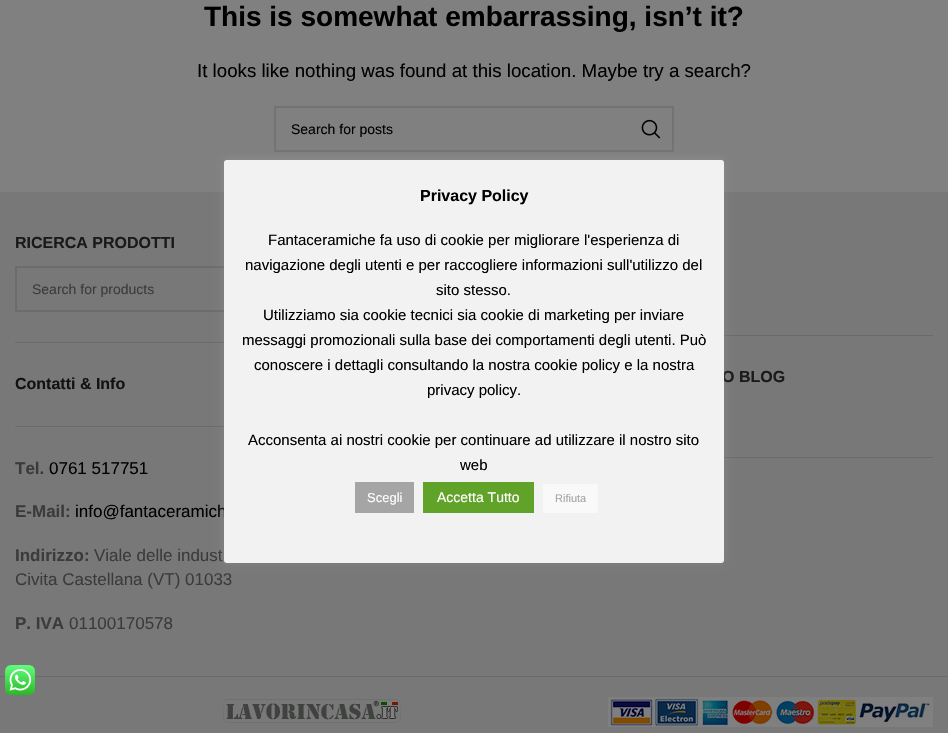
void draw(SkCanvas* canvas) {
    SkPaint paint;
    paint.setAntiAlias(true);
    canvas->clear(0xFF808080);
    SkFont font1(fontMgr->matchFamilyStyle("Liberation Sans", SkFontStyle::Bold()), 28);
    font1.setSubpixel(true);
    paint.setColor(0xFF000000);
    canvas->drawString("This is somewhat embarrassing, isn’t it?", 204, 26, font1, paint);
    SkFont font2(fontMgr->matchFamilyStyle("Liberation Sans", SkFontStyle::Normal()), 18.7f);
    font2.setSubpixel(true);
    canvas->drawString("It looks like nothing was found at this location. Maybe try a search?", 197, 77, font2, paint);
    paint.setStyle(SkPaint::kStroke_Style);
    paint.setStrokeWidth(2);
    paint.setColor(0xFF737373);
    canvas->drawRect(SkRect::MakeXYWH(275, 107, 398, 44), paint);
    SkFont font3(fontMgr->matchFamilyStyle("Liberation Sans", SkFontStyle::Normal()), 14);
    font3.setSubpixel(true);
    paint.setStyle(SkPaint::kFill_Style);
    paint.setColor(0xFF000000);
    canvas->drawString("Search for posts", 291, 134, font3, paint);
    canvas->drawImageRect(SkImages::DeferredFromEncodedData(SkData::MakeFromFileName("img1.png")), SkRect::MakeXYWH(641, 119, 20, 20), SkSamplingOptions());
    paint.setColor(0xFF787878);
    canvas->drawRect(SkRect::MakeXYWH(0, 192, 948, 541), paint);
    paint.setColor(0xFF6B6B6B);
    canvas->drawRect(SkRect::MakeXYWH(15, 342, 209, 1), paint);
    SkFont font4(fontMgr->matchFamilyStyle("Liberation Sans", SkFontStyle::Bold()), 16);
    font4.setSubpixel(true);
    paint.setColor(0xFF1A1A1A);
    canvas->drawString("RICERCA PRODOTTI", 15, 248, font4, paint);
    paint.setStyle(SkPaint::kStroke_Style);
    paint.setColor(0xFF6C6C6C);
    canvas->drawRect(SkRect::MakeXYWH(16, 267, 284, 44), paint);
    paint.setStyle(SkPaint::kFill_Style);
    paint.setColor(0xFF3B3B3B);
    canvas->drawString("Search for products", 32, 294, font3, paint);
    paint.setColor(0xFF6B6B6B);
    canvas->drawRect(SkRect::MakeXYWH(15, 426, 209, 1), paint);
    paint.setColor(0xFF121212);
    canvas->drawString("Contatti & Info", 15, 389, font4, paint);
    SkFont font5(fontMgr->matchFamilyStyle("Liberation Sans", SkFontStyle::Bold()), 17);
    font5.setSubpixel(true);
    paint.setColor(0xFF3B3B3B);
    canvas->drawString("Tel.", 15, 474, font5, paint);
    SkFont font6(fontMgr->matchFamilyStyle("Liberation Sans", SkFontStyle::Normal()), 17);
    font6.setSubpixel(true);
    paint.setColor(0xFF000000);
    canvas->drawString("0761 517751", 49, 474, font6, paint);
    paint.setColor(0xFF3B3B3B);
    canvas->drawString("E-Mail:", 15, 517, font5, paint);
    paint.setColor(0xFF000000);
    canvas->drawString("info@fantaceramich", 75, 517, font6, paint);
    paint.setColor(0xFF3B3B3B);
    canvas->drawString("Indirizzo:", 15, 561, font5, paint);
    canvas->drawString("Viale delle indust", 94, 561, font6, paint);
    canvas->drawString("Civita Castellana (VT) 01033", 15, 585, font6, paint);
    canvas->drawString("P. IVA", 15, 629, font5, paint);
    canvas->drawString("01100170578", 69, 629, font6, paint);
    paint.setColor(0xFF6B6B6B);
    canvas->drawRect(SkRect::MakeXYWH(724, 335, 209, 1), paint);
    canvas->drawRect(SkRect::MakeXYWH(724, 457, 209, 1), paint);
    paint.setColor(0xFF1A1A1A);
    canvas->drawString("O BLOG", 722, 382, font4, paint);
    paint.setColor(0xFF6B6B6B);
    canvas->drawRect(SkRect::MakeXYWH(0, 676, 948, 1), paint);
    canvas->drawImageRect(SkImages::DeferredFromEncodedData(SkData::MakeFromFileName("img2.png")), SkRect::MakeXYWH(223, 699, 178, 24), SkSamplingOptions());
    canvas->drawImageRect(SkImages::DeferredFromEncodedData(SkData::MakeFromFileName("img3.png")), SkRect::MakeXYWH(608, 697, 325, 30), SkSamplingOptions());
    paint.setColor(0x4DACABAB);
    paint.setMaskFilter(SkMaskFilter::MakeBlur(kNormal_SkBlurStyle, 5));
    canvas->drawRoundRect(SkRect::MakeXYWH(224, 159, 500, 403), 3, 3, paint);
    paint.setMaskFilter(nullptr);
    paint.setColor(0xFFF2F2F2);
    canvas->drawRoundRect(SkRect::MakeXYWH(224, 160, 500, 403), 3, 3, paint);
    paint.setColor(0xFF000000);
    canvas->drawString("Privacy Policy", 420, 201, font4, paint);
    SkFont font7(fontMgr->matchFamilyStyle("Liberation Sans", SkFontStyle::Normal()), 15);
    font7.setSubpixel(true);
    canvas->drawString("Fantaceramiche fa uso di cookie per migliorare l'esperienza di", 268, 245, font7, paint);
    canvas->drawString("navigazione degli utenti e per raccogliere informazioni sull'utilizzo del", 245, 270, font7, paint);
    canvas->drawString("sito stesso.", 436, 295, font7, paint);
    canvas->drawString("Utilizziamo sia cookie tecnici sia cookie di marketing per inviare", 263, 320, font7, paint);
    canvas->drawString("messaggi promozionali sulla base dei comportamenti degli utenti. Può", 242, 345, font7, paint);
    canvas->drawString("conoscere i dettagli consultando la nostra cookie policy e la nostra", 254, 370, font7, paint);
    canvas->drawString("privacy policy.", 427, 395, font7, paint);
    canvas->drawString("Acconsenta ai nostri cookie per continuare ad utilizzare il nostro sito", 248, 445, font7, paint);
    canvas->drawString("web", 460, 470, font7, paint);
    paint.setColor(0xFFA5A5A5);
    canvas->drawRect(SkRect::MakeXYWH(355, 482, 59, 31), paint);
    SkFont font8(fontMgr->matchFamilyStyle("Liberation Sans", SkFontStyle::Normal()), 13);
    font8.setSubpixel(true);
    paint.setColor(0xFFFFFFFF);
    canvas->drawString("Scegli", 367, 502, font8, paint);
    paint.setColor(0xFF61A229);
    canvas->drawRect(SkRect::MakeXYWH(423, 482, 111, 31), paint);
    paint.setColor(0xFFFFFFFF);
    canvas->drawString("Accetta Tutto", 437, 502, font3, paint);
    paint.setColor(0xFFF9F9F9);
    canvas->drawRect(SkRect::MakeXYWH(543, 484, 55, 29), paint);
    SkFont font9(fontMgr->matchFamilyStyle("Liberation Sans", SkFontStyle::Normal()), 11);
    font9.setSubpixel(true);
    paint.setColor(0xFFA5A5A5);
    canvas->drawString("Rifiuta", 555, 502, font9, paint);
    canvas->drawImageRect(SkImages::DeferredFromEncodedData(SkData::MakeFromFileName("img4.png")), SkRect::MakeXYWH(5, 665, 30, 30), SkSamplingOptions());
}
